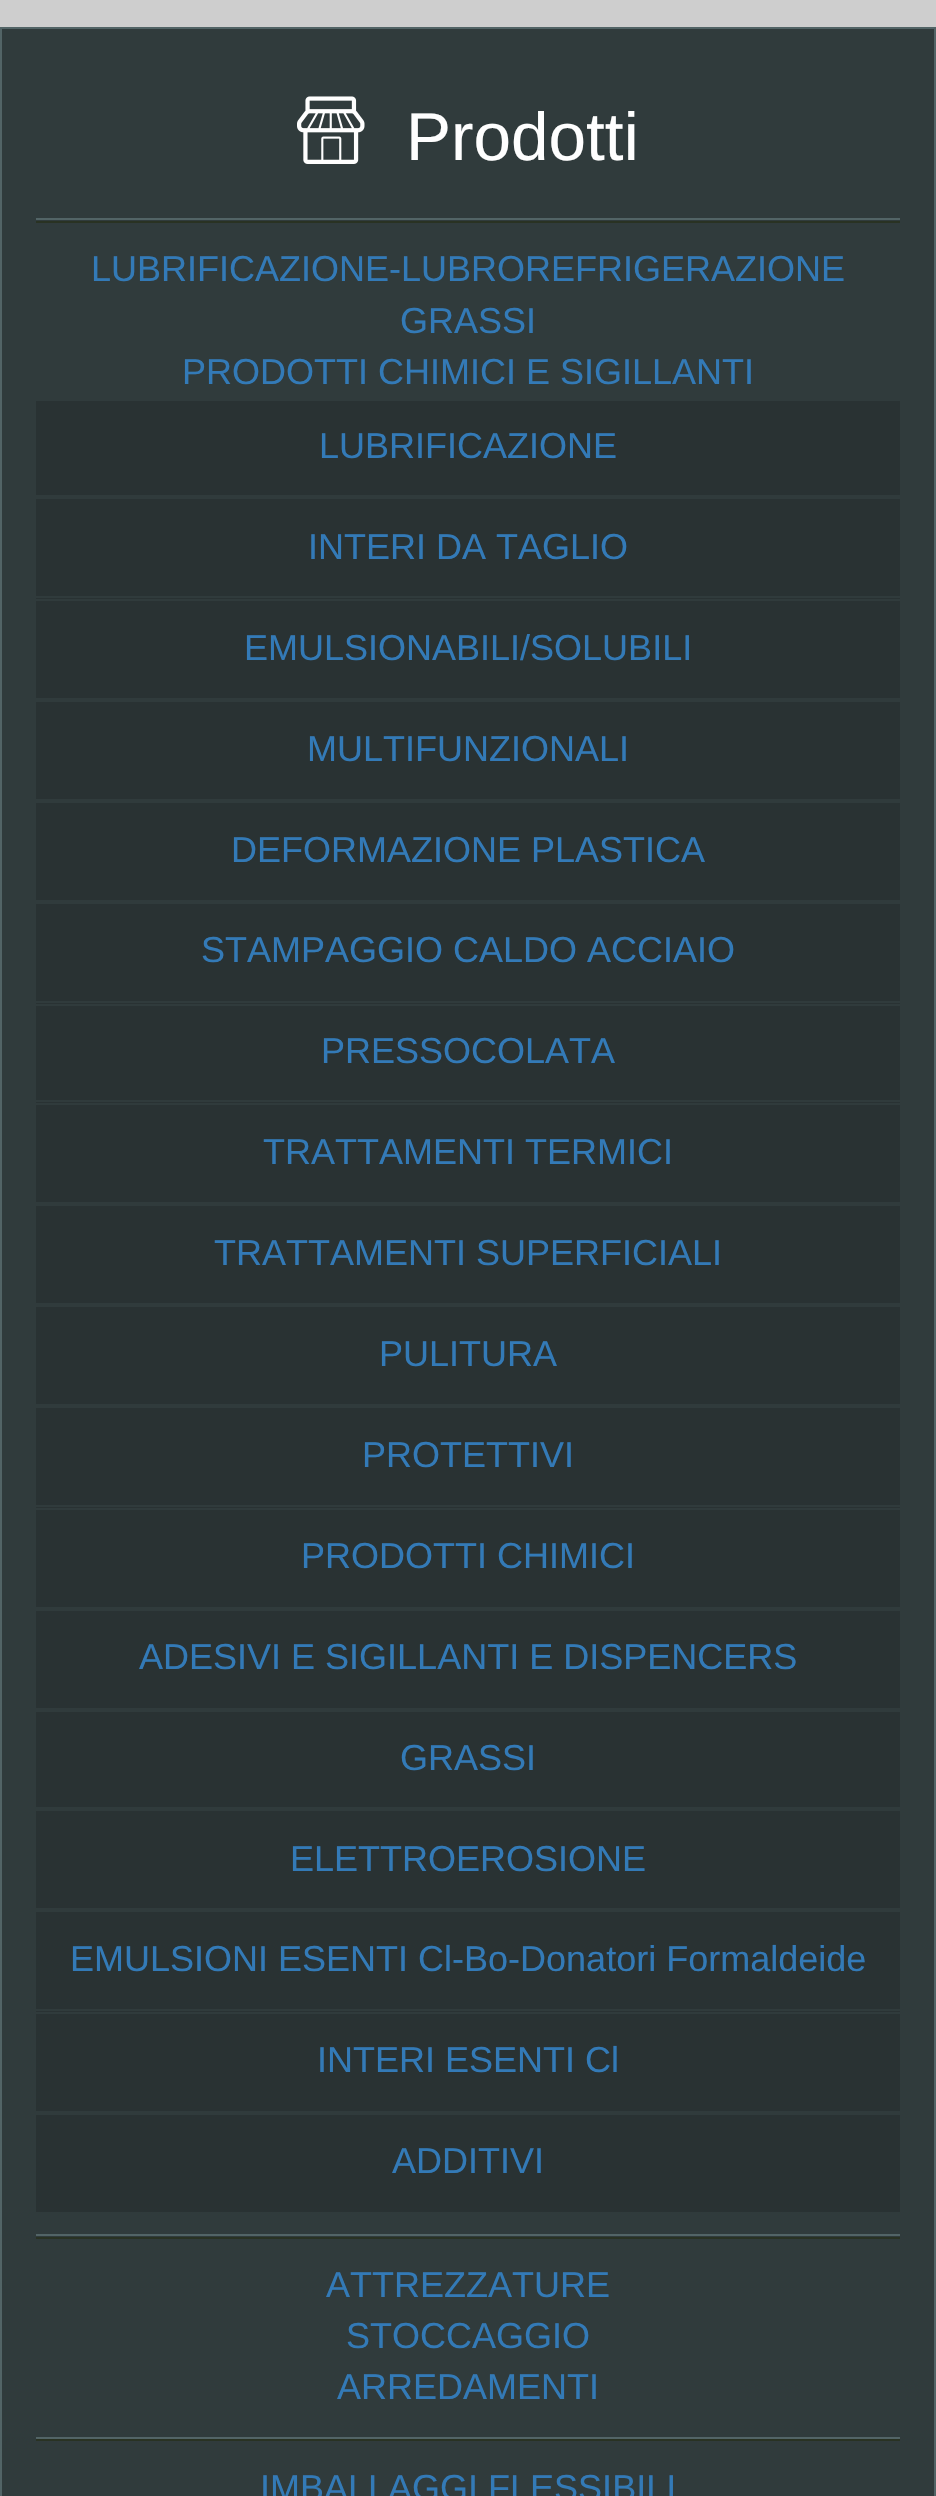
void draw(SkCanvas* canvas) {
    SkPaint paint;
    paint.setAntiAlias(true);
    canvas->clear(0xFFCECECE);
    paint.setColor(0xFF303B3C);
    canvas->drawRect(SkRect::MakeXYWH(1, 28, 934, 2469), paint);
    paint.setStyle(SkPaint::kStroke_Style);
    paint.setStrokeWidth(2);
    paint.setColor(0xFF526466);
    canvas->drawRect(SkRect::MakeXYWH(1, 28, 934, 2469), paint);
    paint.setStyle(SkPaint::kFill_Style);
    canvas->drawRect(SkRect::MakeXYWH(36, 218, 864, 2), paint);
    canvas->drawImageRect(SkImages::DeferredFromEncodedData(SkData::MakeFromFileName("img1.png")), SkRect::MakeXYWH(297, 96, 68, 68), SkSamplingOptions());
    SkFont font1(fontMgr->matchFamilyStyle("Liberation Sans", SkFontStyle::Normal()), 67.5f);
    font1.setSubpixel(true);
    paint.setColor(0xFFFEFEFE);
    canvas->drawString("Prodotti", 406, 160, font1, paint);
    paint.setColor(0xFF293223);
    canvas->drawRect(SkRect::MakeXYWH(36, 221, 864, 2), paint);
    paint.setColor(0xFF526466);
    canvas->drawRect(SkRect::MakeXYWH(36, 2234, 864, 2), paint);
    SkFont font2(fontMgr->matchFamilyStyle("Liberation Sans", SkFontStyle::Normal()), 36);
    font2.setSubpixel(true);
    paint.setColor(0xFF337AB7);
    canvas->drawString("LUBRIFICAZIONE-LUBROREFRIGERAZIONE", 91, 281, font2, paint);
    canvas->drawString("GRASSI", 400, 333, font2, paint);
    canvas->drawString("PRODOTTI CHIMICI E SIGILLANTI", 182, 384, font2, paint);
    paint.setColor(0xFF293233);
    canvas->drawRect(SkRect::MakeXYWH(36, 401, 864, 94), paint);
    paint.setColor(0xFF337AB7);
    canvas->drawString("LUBRIFICAZIONE", 319, 458, font2, paint);
    paint.setColor(0xFF293233);
    canvas->drawRect(SkRect::MakeXYWH(36, 499, 864, 100), paint);
    paint.setColor(0xFF303B3C);
    canvas->drawRect(SkRect::MakeXYWH(36, 596, 864, 2), paint);
    paint.setColor(0xFF337AB7);
    canvas->drawString("INTERI DA TAGLIO", 308, 559, font2, paint);
    paint.setColor(0xFF293233);
    canvas->drawRect(SkRect::MakeXYWH(36, 601, 864, 97), paint);
    paint.setColor(0xFF337AB7);
    canvas->drawString("EMULSIONABILI/SOLUBILI", 244, 660, font2, paint);
    paint.setColor(0xFF293233);
    canvas->drawRect(SkRect::MakeXYWH(36, 702, 864, 97), paint);
    paint.setColor(0xFF337AB7);
    canvas->drawString("MULTIFUNZIONALI", 307, 761, font2, paint);
    paint.setColor(0xFF293233);
    canvas->drawRect(SkRect::MakeXYWH(36, 803, 864, 97), paint);
    paint.setColor(0xFF337AB7);
    canvas->drawString("DEFORMAZIONE PLASTICA", 231, 862, font2, paint);
    paint.setColor(0xFF293233);
    canvas->drawRect(SkRect::MakeXYWH(36, 904, 864, 100), paint);
    paint.setColor(0xFF303B3C);
    canvas->drawRect(SkRect::MakeXYWH(36, 1001, 864, 2), paint);
    paint.setColor(0xFF337AB7);
    canvas->drawString("STAMPAGGIO CALDO ACCIAIO", 201, 962, font2, paint);
    paint.setColor(0xFF293233);
    canvas->drawRect(SkRect::MakeXYWH(36, 1006, 864, 97), paint);
    paint.setColor(0xFF303B3C);
    canvas->drawRect(SkRect::MakeXYWH(36, 1100, 864, 2), paint);
    paint.setColor(0xFF337AB7);
    canvas->drawString("PRESSOCOLATA", 321, 1063, font2, paint);
    paint.setColor(0xFF293233);
    canvas->drawRect(SkRect::MakeXYWH(36, 1105, 864, 97), paint);
    paint.setColor(0xFF337AB7);
    canvas->drawString("TRATTAMENTI TERMICI", 263, 1164, font2, paint);
    paint.setColor(0xFF293233);
    canvas->drawRect(SkRect::MakeXYWH(36, 1206, 864, 97), paint);
    paint.setColor(0xFF337AB7);
    canvas->drawString("TRATTAMENTI SUPERFICIALI", 214, 1265, font2, paint);
    paint.setColor(0xFF293233);
    canvas->drawRect(SkRect::MakeXYWH(36, 1307, 864, 97), paint);
    paint.setColor(0xFF337AB7);
    canvas->drawString("PULITURA", 379, 1366, font2, paint);
    paint.setColor(0xFF293233);
    canvas->drawRect(SkRect::MakeXYWH(36, 1408, 864, 100), paint);
    paint.setColor(0xFF303B3C);
    canvas->drawRect(SkRect::MakeXYWH(36, 1505, 864, 2), paint);
    paint.setColor(0xFF337AB7);
    canvas->drawString("PROTETTIVI", 362, 1467, font2, paint);
    paint.setColor(0xFF293233);
    canvas->drawRect(SkRect::MakeXYWH(36, 1510, 864, 97), paint);
    paint.setColor(0xFF337AB7);
    canvas->drawString("PRODOTTI CHIMICI", 301, 1568, font2, paint);
    paint.setColor(0xFF293233);
    canvas->drawRect(SkRect::MakeXYWH(36, 1611, 864, 97), paint);
    paint.setColor(0xFF337AB7);
    canvas->drawString("ADESIVI E SIGILLANTI E DISPENCERS", 139, 1669, font2, paint);
    paint.setColor(0xFF293233);
    canvas->drawRect(SkRect::MakeXYWH(36, 1712, 864, 95), paint);
    paint.setColor(0xFF337AB7);
    canvas->drawString("GRASSI", 400, 1770, font2, paint);
    paint.setColor(0xFF293233);
    canvas->drawRect(SkRect::MakeXYWH(36, 1811, 864, 97), paint);
    paint.setColor(0xFF337AB7);
    canvas->drawString("ELETTROEROSIONE", 290, 1871, font2, paint);
    paint.setColor(0xFF293233);
    canvas->drawRect(SkRect::MakeXYWH(36, 1912, 864, 100), paint);
    paint.setColor(0xFF303B3C);
    canvas->drawRect(SkRect::MakeXYWH(36, 2009, 864, 2), paint);
    paint.setColor(0xFF337AB7);
    canvas->drawString("EMULSIONI ESENTI Cl-Bo-Donatori Formaldeide", 70, 1971, font2, paint);
    paint.setColor(0xFF293233);
    canvas->drawRect(SkRect::MakeXYWH(36, 2014, 864, 97), paint);
    paint.setColor(0xFF337AB7);
    canvas->drawString("INTERI ESENTI Cl", 317, 2072, font2, paint);
    paint.setColor(0xFF293233);
    canvas->drawRect(SkRect::MakeXYWH(36, 2115, 864, 97), paint);
    paint.setColor(0xFF337AB7);
    canvas->drawString("ADDITIVI", 392, 2173, font2, paint);
    paint.setColor(0xFF293223);
    canvas->drawRect(SkRect::MakeXYWH(36, 2237, 864, 2), paint);
    paint.setColor(0xFF526466);
    canvas->drawRect(SkRect::MakeXYWH(36, 2437, 864, 2), paint);
    paint.setColor(0xFF337AB7);
    canvas->drawString("ATTREZZATURE", 326, 2297, font2, paint);
    canvas->drawString("STOCCAGGIO", 346, 2348, font2, paint);
    canvas->drawString("ARREDAMENTI", 337, 2399, font2, paint);
    paint.setColor(0xFF293223);
    canvas->drawRect(SkRect::MakeXYWH(36, 2439, 864, 2), paint);
    paint.setColor(0xFF337AB7);
    canvas->drawString("IMBALLAGGI FLESSIBILI", 260, 2500, font2, paint);
}
